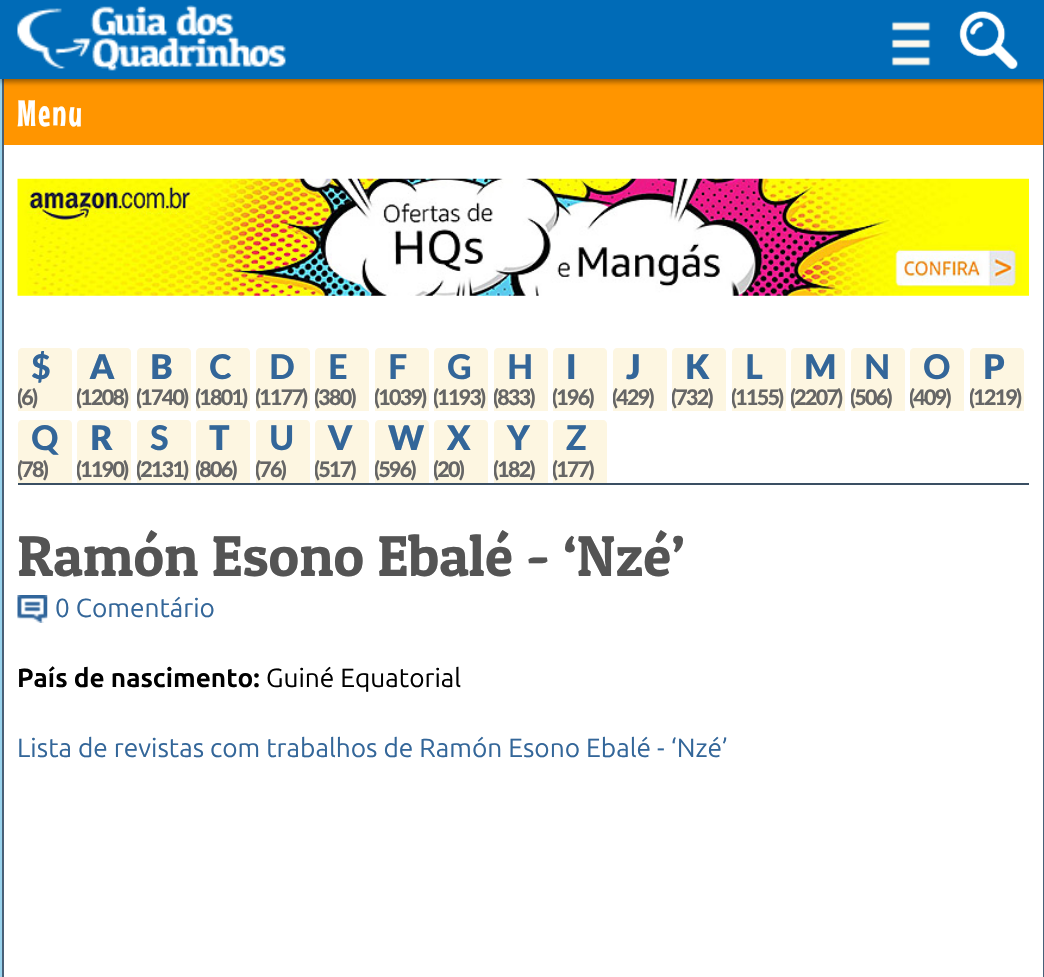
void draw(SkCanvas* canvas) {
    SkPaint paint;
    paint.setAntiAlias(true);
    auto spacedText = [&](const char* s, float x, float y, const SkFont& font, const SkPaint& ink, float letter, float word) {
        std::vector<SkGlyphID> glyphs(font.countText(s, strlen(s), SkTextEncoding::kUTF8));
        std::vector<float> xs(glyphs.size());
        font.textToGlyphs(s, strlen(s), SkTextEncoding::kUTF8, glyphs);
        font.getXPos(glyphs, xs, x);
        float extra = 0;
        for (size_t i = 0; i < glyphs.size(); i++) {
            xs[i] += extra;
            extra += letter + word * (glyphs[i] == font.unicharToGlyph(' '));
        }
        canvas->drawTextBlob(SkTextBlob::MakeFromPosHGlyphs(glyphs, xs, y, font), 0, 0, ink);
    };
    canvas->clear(0xFF99D3ED);
    paint.setColor(0xFFFFFFFF);
    canvas->drawRect(SkRect::MakeXYWH(4, 145, 1039, 832), paint);
    paint.setStyle(SkPaint::kStroke_Style);
    paint.setStrokeWidth(2);
    paint.setColor(0xFF496077);
    canvas->drawRect(SkRect::MakeXYWH(3, 52, 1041, 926), paint);
    paint.setStyle(SkPaint::kFill_Style);
    paint.setColor(0xFFFF9500);
    canvas->drawRect(SkRect::MakeXYWH(4, 79, 1039, 66), paint);
    paint.setColor(0x66000000);
    paint.setMaskFilter(SkMaskFilter::MakeBlur(kNormal_SkBlurStyle, 2.5f));
    canvas->drawRect(SkRect::MakeXYWH(0, 4, 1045, 78), paint);
    paint.setMaskFilter(nullptr);
    paint.setColor(0xFF006BB7);
    canvas->drawRect(SkRect::MakeXYWH(0, 0, 1044, 79), paint);
    canvas->drawImageRect(SkImages::DeferredFromEncodedData(SkData::MakeFromFileName("img1.png")), SkRect::MakeXYWH(17, 5, 269, 66), SkSamplingOptions());
    canvas->drawImageRect(SkImages::DeferredFromEncodedData(SkData::MakeFromFileName("img2.png")), SkRect::MakeXYWH(891, 21, 40, 45), SkSamplingOptions());
    canvas->drawImageRect(SkImages::DeferredFromEncodedData(SkData::MakeFromFileName("img3.png")), SkRect::MakeXYWH(959, 10, 59, 60), SkSamplingOptions());
    SkFont font1(fontMgr->matchFamilyStyle("Mouse Memoirs", SkFontStyle::Normal()), 37);
    font1.setSubpixel(true);
    paint.setColor(0xFFFFFFFF);
    spacedText("Menu", 17, 126, font1, paint, 2, 0);
    canvas->drawImageRect(SkImages::DeferredFromEncodedData(SkData::MakeFromFileName("img4.png")), SkRect::MakeXYWH(17, 178, 1012, 118), SkSamplingOptions());
    paint.setColor(0xFF3A4F63);
    canvas->drawRect(SkRect::MakeXYWH(18, 483, 1011, 2), paint);
    paint.setColor(0xFFFDF6E1);
    canvas->drawPath(SkPathBuilder().moveTo(22, 348).lineTo(68, 348).cubicTo(70, 348, 72, 350, 72, 352).lineTo(72, 411).lineTo(18, 411).lineTo(18, 352).cubicTo(18, 350, 20, 348, 22, 348).close().detach(), paint);
    SkFont font2(fontMgr->matchFamilyStyle("Lato", SkFontStyle(900, SkFontStyle::kNormal_Width, SkFontStyle::kUpright_Slant)), 34);
    font2.setSubpixel(true);
    paint.setColor(0xFF336699);
    canvas->drawString("$", 31, 379, font2, paint);
    canvas->save();
    canvas->clipPath(SkPathBuilder().moveTo(22, 348).lineTo(68, 348).cubicTo(70, 348, 72, 350, 72, 352).lineTo(72, 411).lineTo(18, 411).lineTo(18, 352).cubicTo(18, 350, 20, 348, 22, 348).close().detach(), true);
    SkFont font3(fontMgr->matchFamilyStyle("Lato", SkFontStyle(900, SkFontStyle::kNormal_Width, SkFontStyle::kUpright_Slant)), 21.5f);
    font3.setSubpixel(true);
    paint.setColor(0xFF666666);
    spacedText("(6)", 17, 405, font3, paint, -1.75f, 0);
    canvas->restore();
    paint.setColor(0xFFFDF6E1);
    canvas->drawPath(SkPathBuilder().moveTo(81, 348).lineTo(127, 348).cubicTo(129, 348, 131, 350, 131, 352).lineTo(131, 411).lineTo(77, 411).lineTo(77, 352).cubicTo(77, 350, 79, 348, 81, 348).close().detach(), paint);
    SkFont font4(fontMgr->matchFamilyStyle("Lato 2", SkFontStyle(900, SkFontStyle::kNormal_Width, SkFontStyle::kUpright_Slant)), 34);
    font4.setSubpixel(true);
    paint.setColor(0xFF336699);
    canvas->drawString("A", 90, 379, font4, paint);
    canvas->save();
    canvas->clipPath(SkPathBuilder().moveTo(81, 348).lineTo(127, 348).cubicTo(129, 348, 131, 350, 131, 352).lineTo(131, 411).lineTo(77, 411).lineTo(77, 352).cubicTo(77, 350, 79, 348, 81, 348).close().detach(), true);
    paint.setColor(0xFF666666);
    spacedText("(1208)", 76, 405, font3, paint, -1.75f, 0);
    canvas->restore();
    paint.setColor(0xFFFDF6E1);
    canvas->drawPath(SkPathBuilder().moveTo(141, 348).lineTo(187, 348).cubicTo(189, 348, 191, 350, 191, 352).lineTo(191, 411).lineTo(137, 411).lineTo(137, 352).cubicTo(137, 350, 139, 348, 141, 348).close().detach(), paint);
    paint.setColor(0xFF336699);
    canvas->drawString("B", 150, 379, font4, paint);
    canvas->save();
    canvas->clipPath(SkPathBuilder().moveTo(141, 348).lineTo(187, 348).cubicTo(189, 348, 191, 350, 191, 352).lineTo(191, 411).lineTo(137, 411).lineTo(137, 352).cubicTo(137, 350, 139, 348, 141, 348).close().detach(), true);
    paint.setColor(0xFF666666);
    spacedText("(1740)", 136, 405, font3, paint, -1.75f, 0);
    canvas->restore();
    paint.setColor(0xFFFDF6E1);
    canvas->drawPath(SkPathBuilder().moveTo(200, 348).lineTo(246, 348).cubicTo(248, 348, 250, 350, 250, 352).lineTo(250, 411).lineTo(196, 411).lineTo(196, 352).cubicTo(196, 350, 198, 348, 200, 348).close().detach(), paint);
    paint.setColor(0xFF336699);
    canvas->drawString("C", 209, 379, font2, paint);
    canvas->save();
    canvas->clipPath(SkPathBuilder().moveTo(200, 348).lineTo(246, 348).cubicTo(248, 348, 250, 350, 250, 352).lineTo(250, 411).lineTo(196, 411).lineTo(196, 352).cubicTo(196, 350, 198, 348, 200, 348).close().detach(), true);
    paint.setColor(0xFF666666);
    spacedText("(1801)", 195, 405, font3, paint, -1.75f, 0);
    canvas->restore();
    paint.setColor(0xFFFDF6E1);
    canvas->drawPath(SkPathBuilder().moveTo(260, 348).lineTo(306, 348).cubicTo(308, 348, 310, 350, 310, 352).lineTo(310, 411).lineTo(256, 411).lineTo(256, 352).cubicTo(256, 350, 258, 348, 260, 348).close().detach(), paint);
    paint.setColor(0xFF336699);
    canvas->drawString("D", 269, 379, font2, paint);
    canvas->save();
    canvas->clipPath(SkPathBuilder().moveTo(260, 348).lineTo(306, 348).cubicTo(308, 348, 310, 350, 310, 352).lineTo(310, 411).lineTo(256, 411).lineTo(256, 352).cubicTo(256, 350, 258, 348, 260, 348).close().detach(), true);
    paint.setColor(0xFF666666);
    spacedText("(1177)", 255, 405, font3, paint, -1.75f, 0);
    canvas->restore();
    paint.setColor(0xFFFDF6E1);
    canvas->drawPath(SkPathBuilder().moveTo(319, 348).lineTo(365, 348).cubicTo(367, 348, 369, 350, 369, 352).lineTo(369, 411).lineTo(315, 411).lineTo(315, 352).cubicTo(315, 350, 317, 348, 319, 348).close().detach(), paint);
    paint.setColor(0xFF336699);
    canvas->drawString("E", 328, 379, font2, paint);
    canvas->save();
    canvas->clipPath(SkPathBuilder().moveTo(319, 348).lineTo(365, 348).cubicTo(367, 348, 369, 350, 369, 352).lineTo(369, 411).lineTo(315, 411).lineTo(315, 352).cubicTo(315, 350, 317, 348, 319, 348).close().detach(), true);
    paint.setColor(0xFF666666);
    spacedText("(380)", 314, 405, font3, paint, -1.75f, 0);
    canvas->restore();
    paint.setColor(0xFFFDF6E1);
    canvas->drawPath(SkPathBuilder().moveTo(379, 348).lineTo(425, 348).cubicTo(427, 348, 429, 350, 429, 352).lineTo(429, 411).lineTo(375, 411).lineTo(375, 352).cubicTo(375, 350, 377, 348, 379, 348).close().detach(), paint);
    paint.setColor(0xFF336699);
    canvas->drawString("F", 388, 379, font2, paint);
    canvas->save();
    canvas->clipPath(SkPathBuilder().moveTo(379, 348).lineTo(425, 348).cubicTo(427, 348, 429, 350, 429, 352).lineTo(429, 411).lineTo(375, 411).lineTo(375, 352).cubicTo(375, 350, 377, 348, 379, 348).close().detach(), true);
    paint.setColor(0xFF666666);
    spacedText("(1039)", 374, 405, font3, paint, -1.75f, 0);
    canvas->restore();
    paint.setColor(0xFFFDF6E1);
    canvas->drawPath(SkPathBuilder().moveTo(438, 348).lineTo(484, 348).cubicTo(486, 348, 488, 350, 488, 352).lineTo(488, 411).lineTo(434, 411).lineTo(434, 352).cubicTo(434, 350, 436, 348, 438, 348).close().detach(), paint);
    paint.setColor(0xFF336699);
    canvas->drawString("G", 447, 379, font2, paint);
    canvas->save();
    canvas->clipPath(SkPathBuilder().moveTo(438, 348).lineTo(484, 348).cubicTo(486, 348, 488, 350, 488, 352).lineTo(488, 411).lineTo(434, 411).lineTo(434, 352).cubicTo(434, 350, 436, 348, 438, 348).close().detach(), true);
    paint.setColor(0xFF666666);
    spacedText("(1193)", 433, 405, font3, paint, -1.75f, 0);
    canvas->restore();
    paint.setColor(0xFFFDF6E1);
    canvas->drawPath(SkPathBuilder().moveTo(498, 348).lineTo(544, 348).cubicTo(546, 348, 548, 350, 548, 352).lineTo(548, 411).lineTo(494, 411).lineTo(494, 352).cubicTo(494, 350, 496, 348, 498, 348).close().detach(), paint);
    paint.setColor(0xFF336699);
    canvas->drawString("H", 507, 379, font2, paint);
    canvas->save();
    canvas->clipPath(SkPathBuilder().moveTo(498, 348).lineTo(544, 348).cubicTo(546, 348, 548, 350, 548, 352).lineTo(548, 411).lineTo(494, 411).lineTo(494, 352).cubicTo(494, 350, 496, 348, 498, 348).close().detach(), true);
    paint.setColor(0xFF666666);
    spacedText("(833)", 493, 405, font3, paint, -1.75f, 0);
    canvas->restore();
    paint.setColor(0xFFFDF6E1);
    canvas->drawPath(SkPathBuilder().moveTo(557, 348).lineTo(603, 348).cubicTo(605, 348, 607, 350, 607, 352).lineTo(607, 411).lineTo(553, 411).lineTo(553, 352).cubicTo(553, 350, 555, 348, 557, 348).close().detach(), paint);
    paint.setColor(0xFF336699);
    canvas->drawString("I", 566, 379, font4, paint);
    canvas->save();
    canvas->clipPath(SkPathBuilder().moveTo(557, 348).lineTo(603, 348).cubicTo(605, 348, 607, 350, 607, 352).lineTo(607, 411).lineTo(553, 411).lineTo(553, 352).cubicTo(553, 350, 555, 348, 557, 348).close().detach(), true);
    paint.setColor(0xFF666666);
    spacedText("(196)", 552, 405, font3, paint, -1.75f, 0);
    canvas->restore();
    paint.setColor(0xFFFDF6E1);
    canvas->drawPath(SkPathBuilder().moveTo(617, 348).lineTo(663, 348).cubicTo(665, 348, 667, 350, 667, 352).lineTo(667, 411).lineTo(613, 411).lineTo(613, 352).cubicTo(613, 350, 615, 348, 617, 348).close().detach(), paint);
    paint.setColor(0xFF336699);
    canvas->drawString("J", 626, 379, font4, paint);
    canvas->save();
    canvas->clipPath(SkPathBuilder().moveTo(617, 348).lineTo(663, 348).cubicTo(665, 348, 667, 350, 667, 352).lineTo(667, 411).lineTo(613, 411).lineTo(613, 352).cubicTo(613, 350, 615, 348, 617, 348).close().detach(), true);
    paint.setColor(0xFF666666);
    spacedText("(429)", 612, 405, font3, paint, -1.75f, 0);
    canvas->restore();
    paint.setColor(0xFFFDF6E1);
    canvas->drawPath(SkPathBuilder().moveTo(676, 348).lineTo(722, 348).cubicTo(724, 348, 726, 350, 726, 352).lineTo(726, 411).lineTo(672, 411).lineTo(672, 352).cubicTo(672, 350, 674, 348, 676, 348).close().detach(), paint);
    paint.setColor(0xFF336699);
    canvas->drawString("K", 685, 379, font4, paint);
    canvas->save();
    canvas->clipPath(SkPathBuilder().moveTo(676, 348).lineTo(722, 348).cubicTo(724, 348, 726, 350, 726, 352).lineTo(726, 411).lineTo(672, 411).lineTo(672, 352).cubicTo(672, 350, 674, 348, 676, 348).close().detach(), true);
    paint.setColor(0xFF666666);
    spacedText("(732)", 671, 405, font3, paint, -1.75f, 0);
    canvas->restore();
    paint.setColor(0xFFFDF6E1);
    canvas->drawPath(SkPathBuilder().moveTo(736, 348).lineTo(782, 348).cubicTo(784, 348, 786, 350, 786, 352).lineTo(786, 411).lineTo(732, 411).lineTo(732, 352).cubicTo(732, 350, 734, 348, 736, 348).close().detach(), paint);
    paint.setColor(0xFF336699);
    canvas->drawString("L", 745, 379, font2, paint);
    canvas->save();
    canvas->clipPath(SkPathBuilder().moveTo(736, 348).lineTo(782, 348).cubicTo(784, 348, 786, 350, 786, 352).lineTo(786, 411).lineTo(732, 411).lineTo(732, 352).cubicTo(732, 350, 734, 348, 736, 348).close().detach(), true);
    paint.setColor(0xFF666666);
    spacedText("(1155)", 731, 405, font3, paint, -1.75f, 0);
    canvas->restore();
    paint.setColor(0xFFFDF6E1);
    canvas->drawPath(SkPathBuilder().moveTo(795, 348).lineTo(841, 348).cubicTo(843, 348, 845, 350, 845, 352).lineTo(845, 411).lineTo(791, 411).lineTo(791, 352).cubicTo(791, 350, 793, 348, 795, 348).close().detach(), paint);
    paint.setColor(0xFF336699);
    canvas->drawString("M", 804, 379, font4, paint);
    canvas->save();
    canvas->clipPath(SkPathBuilder().moveTo(795, 348).lineTo(841, 348).cubicTo(843, 348, 845, 350, 845, 352).lineTo(845, 411).lineTo(791, 411).lineTo(791, 352).cubicTo(791, 350, 793, 348, 795, 348).close().detach(), true);
    paint.setColor(0xFF666666);
    spacedText("(2207)", 790, 405, font3, paint, -1.75f, 0);
    canvas->restore();
    paint.setColor(0xFFFDF6E1);
    canvas->drawPath(SkPathBuilder().moveTo(855, 348).lineTo(901, 348).cubicTo(903, 348, 905, 350, 905, 352).lineTo(905, 411).lineTo(851, 411).lineTo(851, 352).cubicTo(851, 350, 853, 348, 855, 348).close().detach(), paint);
    paint.setColor(0xFF336699);
    canvas->drawString("N", 864, 379, font2, paint);
    canvas->save();
    canvas->clipPath(SkPathBuilder().moveTo(855, 348).lineTo(901, 348).cubicTo(903, 348, 905, 350, 905, 352).lineTo(905, 411).lineTo(851, 411).lineTo(851, 352).cubicTo(851, 350, 853, 348, 855, 348).close().detach(), true);
    paint.setColor(0xFF666666);
    spacedText("(506)", 850, 405, font3, paint, -1.75f, 0);
    canvas->restore();
    paint.setColor(0xFFFDF6E1);
    canvas->drawPath(SkPathBuilder().moveTo(914, 348).lineTo(960, 348).cubicTo(962, 348, 964, 350, 964, 352).lineTo(964, 411).lineTo(910, 411).lineTo(910, 352).cubicTo(910, 350, 912, 348, 914, 348).close().detach(), paint);
    paint.setColor(0xFF336699);
    canvas->drawString("O", 923, 379, font2, paint);
    canvas->save();
    canvas->clipPath(SkPathBuilder().moveTo(914, 348).lineTo(960, 348).cubicTo(962, 348, 964, 350, 964, 352).lineTo(964, 411).lineTo(910, 411).lineTo(910, 352).cubicTo(910, 350, 912, 348, 914, 348).close().detach(), true);
    paint.setColor(0xFF666666);
    spacedText("(409)", 909, 405, font3, paint, -1.75f, 0);
    canvas->restore();
    paint.setColor(0xFFFDF6E1);
    canvas->drawPath(SkPathBuilder().moveTo(974, 348).lineTo(1020, 348).cubicTo(1022, 348, 1024, 350, 1024, 352).lineTo(1024, 411).lineTo(970, 411).lineTo(970, 352).cubicTo(970, 350, 972, 348, 974, 348).close().detach(), paint);
    paint.setColor(0xFF336699);
    canvas->drawString("P", 983, 379, font4, paint);
    canvas->save();
    canvas->clipPath(SkPathBuilder().moveTo(974, 348).lineTo(1020, 348).cubicTo(1022, 348, 1024, 350, 1024, 352).lineTo(1024, 411).lineTo(970, 411).lineTo(970, 352).cubicTo(970, 350, 972, 348, 974, 348).close().detach(), true);
    paint.setColor(0xFF666666);
    spacedText("(1219)", 969, 405, font3, paint, -1.75f, 0);
    canvas->restore();
    paint.setColor(0xFFFDF6E1);
    canvas->drawPath(SkPathBuilder().moveTo(22, 420).lineTo(68, 420).cubicTo(70, 420, 72, 422, 72, 424).lineTo(72, 483).lineTo(18, 483).lineTo(18, 424).cubicTo(18, 422, 20, 420, 22, 420).close().detach(), paint);
    paint.setColor(0xFF336699);
    canvas->drawString("Q", 31, 450, font2, paint);
    canvas->save();
    canvas->clipPath(SkPathBuilder().moveTo(22, 420).lineTo(68, 420).cubicTo(70, 420, 72, 422, 72, 424).lineTo(72, 483).lineTo(18, 483).lineTo(18, 424).cubicTo(18, 422, 20, 420, 22, 420).close().detach(), true);
    paint.setColor(0xFF666666);
    spacedText("(78)", 17, 477, font3, paint, -1.75f, 0);
    canvas->restore();
    paint.setColor(0xFFFDF6E1);
    canvas->drawPath(SkPathBuilder().moveTo(81, 420).lineTo(127, 420).cubicTo(129, 420, 131, 422, 131, 424).lineTo(131, 483).lineTo(77, 483).lineTo(77, 424).cubicTo(77, 422, 79, 420, 81, 420).close().detach(), paint);
    paint.setColor(0xFF336699);
    canvas->drawString("R", 90, 450, font4, paint);
    canvas->save();
    canvas->clipPath(SkPathBuilder().moveTo(81, 420).lineTo(127, 420).cubicTo(129, 420, 131, 422, 131, 424).lineTo(131, 483).lineTo(77, 483).lineTo(77, 424).cubicTo(77, 422, 79, 420, 81, 420).close().detach(), true);
    paint.setColor(0xFF666666);
    spacedText("(1190)", 76, 477, font3, paint, -1.75f, 0);
    canvas->restore();
    paint.setColor(0xFFFDF6E1);
    canvas->drawPath(SkPathBuilder().moveTo(141, 420).lineTo(187, 420).cubicTo(189, 420, 191, 422, 191, 424).lineTo(191, 483).lineTo(137, 483).lineTo(137, 424).cubicTo(137, 422, 139, 420, 141, 420).close().detach(), paint);
    paint.setColor(0xFF336699);
    canvas->drawString("S", 150, 450, font2, paint);
    canvas->save();
    canvas->clipPath(SkPathBuilder().moveTo(141, 420).lineTo(187, 420).cubicTo(189, 420, 191, 422, 191, 424).lineTo(191, 483).lineTo(137, 483).lineTo(137, 424).cubicTo(137, 422, 139, 420, 141, 420).close().detach(), true);
    paint.setColor(0xFF666666);
    spacedText("(2131)", 136, 477, font3, paint, -1.75f, 0);
    canvas->restore();
    paint.setColor(0xFFFDF6E1);
    canvas->drawPath(SkPathBuilder().moveTo(200, 420).lineTo(246, 420).cubicTo(248, 420, 250, 422, 250, 424).lineTo(250, 483).lineTo(196, 483).lineTo(196, 424).cubicTo(196, 422, 198, 420, 200, 420).close().detach(), paint);
    paint.setColor(0xFF336699);
    canvas->drawString("T", 209, 450, font4, paint);
    canvas->save();
    canvas->clipPath(SkPathBuilder().moveTo(200, 420).lineTo(246, 420).cubicTo(248, 420, 250, 422, 250, 424).lineTo(250, 483).lineTo(196, 483).lineTo(196, 424).cubicTo(196, 422, 198, 420, 200, 420).close().detach(), true);
    paint.setColor(0xFF666666);
    spacedText("(806)", 195, 477, font3, paint, -1.75f, 0);
    canvas->restore();
    paint.setColor(0xFFFDF6E1);
    canvas->drawPath(SkPathBuilder().moveTo(260, 420).lineTo(306, 420).cubicTo(308, 420, 310, 422, 310, 424).lineTo(310, 483).lineTo(256, 483).lineTo(256, 424).cubicTo(256, 422, 258, 420, 260, 420).close().detach(), paint);
    paint.setColor(0xFF336699);
    canvas->drawString("U", 269, 450, font2, paint);
    canvas->save();
    canvas->clipPath(SkPathBuilder().moveTo(260, 420).lineTo(306, 420).cubicTo(308, 420, 310, 422, 310, 424).lineTo(310, 483).lineTo(256, 483).lineTo(256, 424).cubicTo(256, 422, 258, 420, 260, 420).close().detach(), true);
    paint.setColor(0xFF666666);
    spacedText("(76)", 255, 477, font3, paint, -1.75f, 0);
    canvas->restore();
    paint.setColor(0xFFFDF6E1);
    canvas->drawPath(SkPathBuilder().moveTo(319, 420).lineTo(365, 420).cubicTo(367, 420, 369, 422, 369, 424).lineTo(369, 483).lineTo(315, 483).lineTo(315, 424).cubicTo(315, 422, 317, 420, 319, 420).close().detach(), paint);
    paint.setColor(0xFF336699);
    canvas->drawString("V", 328, 450, font4, paint);
    canvas->save();
    canvas->clipPath(SkPathBuilder().moveTo(319, 420).lineTo(365, 420).cubicTo(367, 420, 369, 422, 369, 424).lineTo(369, 483).lineTo(315, 483).lineTo(315, 424).cubicTo(315, 422, 317, 420, 319, 420).close().detach(), true);
    paint.setColor(0xFF666666);
    spacedText("(517)", 314, 477, font3, paint, -1.75f, 0);
    canvas->restore();
    paint.setColor(0xFFFDF6E1);
    canvas->drawPath(SkPathBuilder().moveTo(379, 420).lineTo(425, 420).cubicTo(427, 420, 429, 422, 429, 424).lineTo(429, 483).lineTo(375, 483).lineTo(375, 424).cubicTo(375, 422, 377, 420, 379, 420).close().detach(), paint);
    paint.setColor(0xFF336699);
    canvas->drawString("W", 388, 450, font4, paint);
    canvas->save();
    canvas->clipPath(SkPathBuilder().moveTo(379, 420).lineTo(425, 420).cubicTo(427, 420, 429, 422, 429, 424).lineTo(429, 483).lineTo(375, 483).lineTo(375, 424).cubicTo(375, 422, 377, 420, 379, 420).close().detach(), true);
    paint.setColor(0xFF666666);
    spacedText("(596)", 374, 477, font3, paint, -1.75f, 0);
    canvas->restore();
    paint.setColor(0xFFFDF6E1);
    canvas->drawPath(SkPathBuilder().moveTo(438, 420).lineTo(484, 420).cubicTo(486, 420, 488, 422, 488, 424).lineTo(488, 483).lineTo(434, 483).lineTo(434, 424).cubicTo(434, 422, 436, 420, 438, 420).close().detach(), paint);
    paint.setColor(0xFF336699);
    canvas->drawString("X", 447, 450, font4, paint);
    canvas->save();
    canvas->clipPath(SkPathBuilder().moveTo(438, 420).lineTo(484, 420).cubicTo(486, 420, 488, 422, 488, 424).lineTo(488, 483).lineTo(434, 483).lineTo(434, 424).cubicTo(434, 422, 436, 420, 438, 420).close().detach(), true);
    paint.setColor(0xFF666666);
    spacedText("(20)", 433, 477, font3, paint, -1.75f, 0);
    canvas->restore();
    paint.setColor(0xFFFDF6E1);
    canvas->drawPath(SkPathBuilder().moveTo(498, 420).lineTo(544, 420).cubicTo(546, 420, 548, 422, 548, 424).lineTo(548, 483).lineTo(494, 483).lineTo(494, 424).cubicTo(494, 422, 496, 420, 498, 420).close().detach(), paint);
    paint.setColor(0xFF336699);
    canvas->drawString("Y", 507, 450, font4, paint);
    canvas->save();
    canvas->clipPath(SkPathBuilder().moveTo(498, 420).lineTo(544, 420).cubicTo(546, 420, 548, 422, 548, 424).lineTo(548, 483).lineTo(494, 483).lineTo(494, 424).cubicTo(494, 422, 496, 420, 498, 420).close().detach(), true);
    paint.setColor(0xFF666666);
    spacedText("(182)", 493, 477, font3, paint, -1.75f, 0);
    canvas->restore();
    paint.setColor(0xFFFDF6E1);
    canvas->drawPath(SkPathBuilder().moveTo(557, 420).lineTo(603, 420).cubicTo(605, 420, 607, 422, 607, 424).lineTo(607, 483).lineTo(553, 483).lineTo(553, 424).cubicTo(553, 422, 555, 420, 557, 420).close().detach(), paint);
    paint.setColor(0xFF336699);
    canvas->drawString("Z", 566, 450, font2, paint);
    canvas->save();
    canvas->clipPath(SkPathBuilder().moveTo(557, 420).lineTo(603, 420).cubicTo(605, 420, 607, 422, 607, 424).lineTo(607, 483).lineTo(553, 483).lineTo(553, 424).cubicTo(553, 422, 555, 420, 557, 420).close().detach(), true);
    paint.setColor(0xFF666666);
    spacedText("(177)", 552, 477, font3, paint, -1.75f, 0);
    canvas->restore();
    SkFont font5(fontMgr->matchFamilyStyle("Patua One", SkFontStyle::Normal()), 57.75f);
    font5.setSubpixel(true);
    paint.setColor(0xFF545454);
    canvas->drawString("Ramón Esono Ebalé - ‘Nzé’", 17, 576, font5, paint);
    canvas->drawImageRect(SkImages::DeferredFromEncodedData(SkData::MakeFromFileName("img5.png")), SkRect::MakeXYWH(17, 595, 31, 28), SkSamplingOptions());
    SkFont font6(fontMgr->matchFamilyStyle("Ubuntu", SkFontStyle::Normal()), 26.25f);
    font6.setSubpixel(true);
    paint.setColor(0xFF336699);
    canvas->drawString("0 Comentário", 55, 617, font6, paint);
    SkFont font7(fontMgr->matchFamilyStyle("Ubuntu", SkFontStyle::Bold()), 26.25f);
    font7.setSubpixel(true);
    paint.setColor(0xFF000000);
    canvas->drawString("País de nascimento:", 17, 687, font7, paint);
    canvas->drawString("Guiné Equatorial", 266, 687, font6, paint);
    paint.setColor(0xFF336699);
    canvas->drawString("Lista de revistas com trabalhos de Ramón Esono Ebalé - ‘Nzé’", 17, 757, font6, paint);
}
